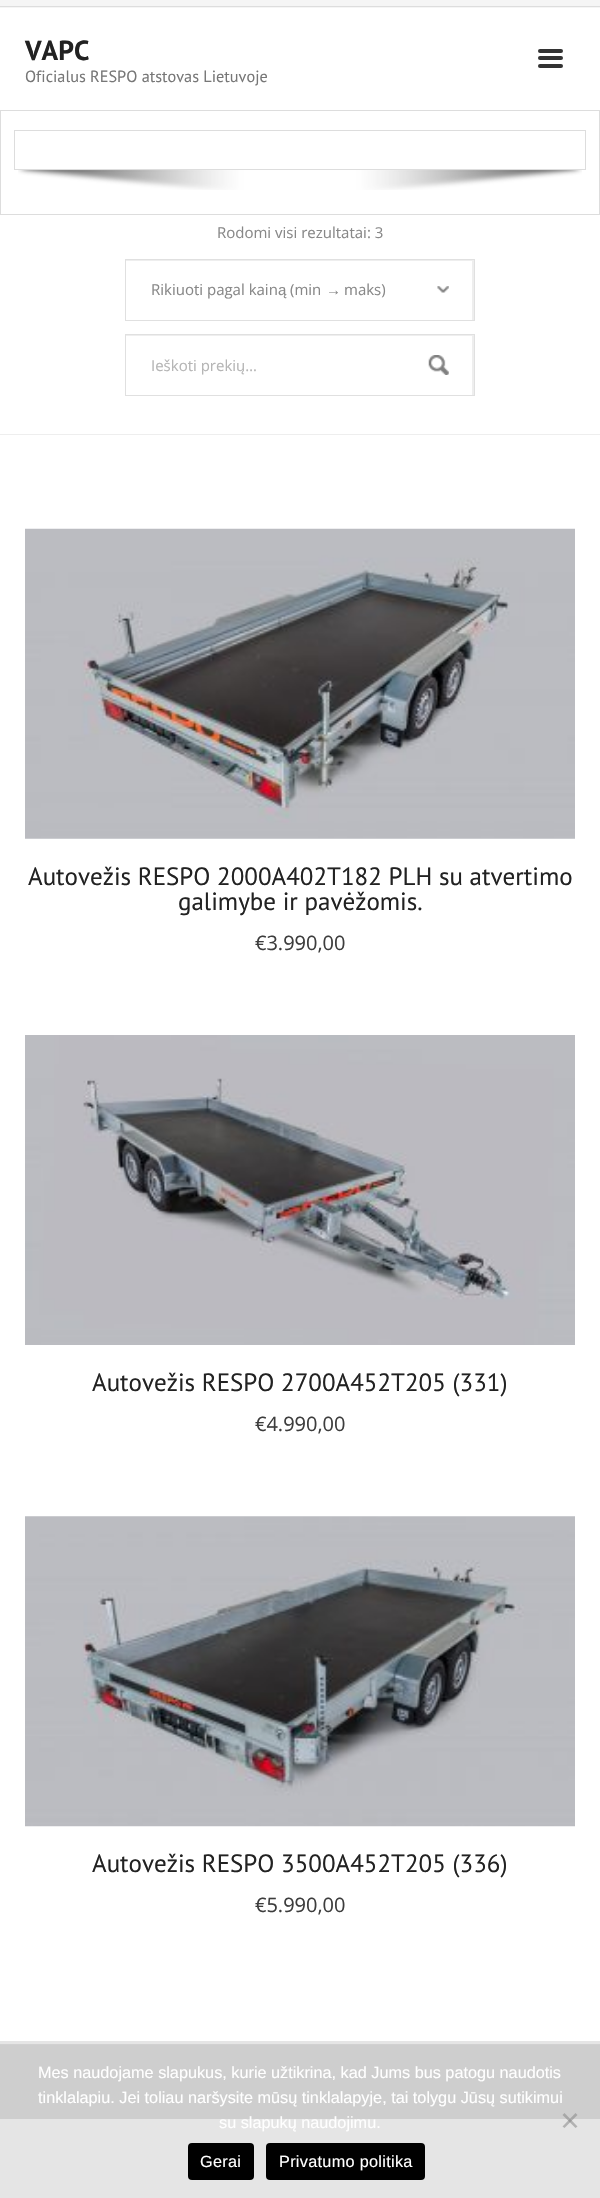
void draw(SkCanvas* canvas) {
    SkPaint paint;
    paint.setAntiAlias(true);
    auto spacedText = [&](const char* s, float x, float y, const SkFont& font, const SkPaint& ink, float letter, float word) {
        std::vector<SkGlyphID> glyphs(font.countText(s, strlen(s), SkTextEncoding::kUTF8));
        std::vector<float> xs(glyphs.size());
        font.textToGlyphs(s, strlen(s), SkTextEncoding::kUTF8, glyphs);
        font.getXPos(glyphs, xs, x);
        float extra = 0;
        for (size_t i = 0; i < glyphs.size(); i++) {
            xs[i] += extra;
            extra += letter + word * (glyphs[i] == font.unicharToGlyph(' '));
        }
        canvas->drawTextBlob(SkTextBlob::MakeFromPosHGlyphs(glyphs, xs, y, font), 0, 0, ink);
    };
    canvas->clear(0xFFE5E5E5);
    paint.setColor(0xFFFFFFFF);
    canvas->drawRect(SkRect::MakeXYWH(0, 8, 600, 2033), paint);
    paint.setColor(0xFFDDDDDD);
    canvas->drawRect(SkRect::MakeXYWH(0, 110, 600, 1), paint);
    paint.setColor(0xFFF5F5F5);
    canvas->drawRect(SkRect::MakeXYWH(0, 0, 600, 8), paint);
    paint.setColor(0xFFDDDDDD);
    canvas->drawRect(SkRect::MakeXYWH(0, 6, 600, 1), paint);
    SkFont font1(fontMgr->matchFamilyStyle("PT Sans", SkFontStyle::Bold()), 27.5f);
    font1.setSubpixel(true);
    paint.setColor(0xFF222222);
    canvas->drawString("VAPC", 25, 60, font1, paint);
    SkFont font2(fontMgr->matchFamilyStyle("PT Sans", SkFontStyle::Normal()), 16.25f);
    font2.setSubpixel(true);
    paint.setColor(0xFF777777);
    canvas->drawString("Oficialus RESPO atstovas Lietuvoje", 25, 82, font2, paint);
    paint.setColor(0xFF333333);
    canvas->drawRoundRect(SkRect::MakeXYWH(538, 49, 25, 4), 2, 2, paint);
    canvas->drawRoundRect(SkRect::MakeXYWH(538, 56, 25, 4), 2, 2, paint);
    canvas->drawRoundRect(SkRect::MakeXYWH(538, 64, 25, 4), 2, 2, paint);
    paint.setColor(0xFFDDDDDD);
    canvas->drawRect(SkRect::MakeXYWH(599, 111, 1, 104), paint);
    canvas->drawRect(SkRect::MakeXYWH(0, 214, 600, 1), paint);
    canvas->drawRect(SkRect::MakeXYWH(0, 111, 1, 104), paint);
    paint.setStyle(SkPaint::kStroke_Style);
    paint.setStrokeWidth(1);
    canvas->drawRect(SkRect::MakeXYWH(14.5f, 130.5f, 571, 39), paint);
    canvas->drawImageRect(SkImages::DeferredFromEncodedData(SkData::MakeFromFileName("img1.png")), SkRect::MakeXYWH(18, 170, 564, 20), SkSamplingOptions());
    paint.setStyle(SkPaint::kFill_Style);
    paint.setColor(0xFFEEEEEE);
    canvas->drawRect(SkRect::MakeXYWH(0, 434, 600, 1), paint);
    SkFont font3(fontMgr->matchFamilyStyle("Open Sans", SkFontStyle::Normal()), 15);
    font3.setSubpixel(true);
    paint.setColor(0xFF888888);
    canvas->drawString("Rodomi visi rezultatai: 3", 217, 238, font3, paint);
    canvas->drawImageRect(SkImages::DeferredFromEncodedData(SkData::MakeFromFileName("img2.png")), SkRect::MakeXYWH(437, 286, 12, 7), SkSamplingOptions());
    canvas->save();
    canvas->clipRect(SkRect::MakeXYWH(126, 260, 348, 60));
    paint.setColor(0xFFEEEEEE);
    canvas->drawPath(SkPathBuilder(SkPathFillType::kEvenOdd).moveTo(2, 136).lineTo(598, 136).lineTo(598, 444).lineTo(2, 444).close().moveTo(125, 261).lineTo(472, 261).lineTo(472, 321).lineTo(125, 321).close().detach(), paint);
    canvas->restore();
    paint.setStyle(SkPaint::kStroke_Style);
    paint.setColor(0xFFE0E0E0);
    canvas->drawRect(SkRect::MakeXYWH(125.5f, 259.5f, 349, 61), paint);
    paint.setStyle(SkPaint::kFill_Style);
    paint.setColor(0xFF888888);
    canvas->drawString("Rikiuoti pagal kain", 151, 295, font3, paint);
    SkFont font4(fontMgr->matchFamilyStyle("Liberation Sans", SkFontStyle::Normal()), 15);
    font4.setSubpixel(true);
    canvas->drawString("ą", 278, 295, font4, paint);
    canvas->drawString("(min", 290, 295, font3, paint);
    canvas->drawString("→", 326, 295, font4, paint);
    canvas->drawString("maks)", 344, 295, font3, paint);
    canvas->drawImageRect(SkImages::DeferredFromEncodedData(SkData::MakeFromFileName("img3.png")), SkRect::MakeXYWH(428, 355, 21, 20), SkSamplingOptions());
    canvas->save();
    canvas->clipRect(SkRect::MakeXYWH(126, 335, 348, 60));
    paint.setColor(0xFFEEEEEE);
    canvas->drawPath(SkPathBuilder(SkPathFillType::kEvenOdd).moveTo(2, 211).lineTo(598, 211).lineTo(598, 519).lineTo(2, 519).close().moveTo(125, 336).lineTo(472, 336).lineTo(472, 396).lineTo(125, 396).close().detach(), paint);
    canvas->restore();
    paint.setStyle(SkPaint::kStroke_Style);
    paint.setColor(0xFFE0E0E0);
    canvas->drawRect(SkRect::MakeXYWH(125.5f, 334.5f, 349, 61), paint);
    paint.setStyle(SkPaint::kFill_Style);
    paint.setColor(0xFFB5B5B5);
    canvas->drawString("Ieškoti prekių…", 151, 371, font3, paint);
    canvas->drawImageRect(SkImages::DeferredFromEncodedData(SkData::MakeFromFileName("img4.png")), SkRect::MakeXYWH(25, 528, 550, 311), SkSamplingOptions());
    SkFont font5(fontMgr->matchFamilyStyle("PT Sans", SkFontStyle::Normal()), 25);
    font5.setSubpixel(true);
    paint.setColor(0xFF222222);
    canvas->drawString("Autovežis RESPO 2000A402T182 PLH su atvertimo", 28, 885, font5, paint);
    canvas->drawString("galimybe ir pavėžomis.", 178, 910, font5, paint);
    SkFont font6(fontMgr->matchFamilyStyle("Open Sans", SkFontStyle::Normal()), 20);
    font6.setSubpixel(true);
    paint.setColor(0xFF3D3D3D);
    canvas->drawString("€3.990,00", 255, 950, font6, paint);
    canvas->drawImageRect(SkImages::DeferredFromEncodedData(SkData::MakeFromFileName("img5.png")), SkRect::MakeXYWH(25, 1035, 550, 310), SkSamplingOptions());
    paint.setColor(0xFF222222);
    canvas->drawString("Autovežis RESPO 2700A452T205 (331)", 92, 1391, font5, paint);
    paint.setColor(0xFF3D3D3D);
    canvas->drawString("€4.990,00", 255, 1431, font6, paint);
    canvas->drawImageRect(SkImages::DeferredFromEncodedData(SkData::MakeFromFileName("img6.png")), SkRect::MakeXYWH(25, 1516, 550, 311), SkSamplingOptions());
    paint.setColor(0xFF222222);
    canvas->drawString("Autovežis RESPO 3500A452T205 (336)", 92, 1872, font5, paint);
    paint.setColor(0xFF3D3D3D);
    canvas->drawString("€5.990,00", 255, 1912, font6, paint);
    paint.setColor(0xFFCECECE);
    canvas->drawRect(SkRect::MakeXYWH(0, 2045, 600, 74), paint);
    paint.setColor(0xFFD1D1D1);
    canvas->drawRect(SkRect::MakeXYWH(0, 2044, 600, 1), paint);
    SkFont font7(fontMgr->matchFamilyStyle("Liberation Sans", SkFontStyle::Normal()), 16.25f);
    font7.setSubpixel(true);
    paint.setColor(0xFFFFFFFF);
    canvas->drawString("Mes naudojame slapukus, kurie užtikrina, kad Jums bus patogu naudotis", 38, 2078, font7, paint);
    canvas->drawString("tinklalapiu. Jei toliau naršysite mūsų tinklalapyje, tai tolygu Jūsų sutikimui", 38, 2103, font7, paint);
    canvas->drawString("su slapukų naudojimu.", 219, 2128, font7, paint);
    paint.setColor(0x80808080);
    canvas->drawPath(SkPathBuilder().moveTo(575.5f, 2113).lineTo(577.5f, 2115).lineTo(564.5f, 2128).lineTo(562.5f, 2126.5f).close().detach(), paint);
    canvas->drawPath(SkPathBuilder().moveTo(562.5f, 2115).lineTo(564.5f, 2113).lineTo(577.5f, 2126.5f).lineTo(575.5f, 2128).close().detach(), paint);
    paint.setColor(0xFF000000);
    canvas->drawRoundRect(SkRect::MakeXYWH(188, 2143, 66, 37), 4, 4, paint);
    paint.setColor(0xFFFFFFFF);
    spacedText("Gerai", 200, 2167, font7, paint, 0.3f, 0);
    paint.setColor(0xFF000000);
    canvas->drawRoundRect(SkRect::MakeXYWH(266, 2143, 159, 37), 4, 4, paint);
    paint.setColor(0xFFFFFFFF);
    spacedText("Privatumo politika", 279, 2167, font7, paint, 0.3f, 0);
}
